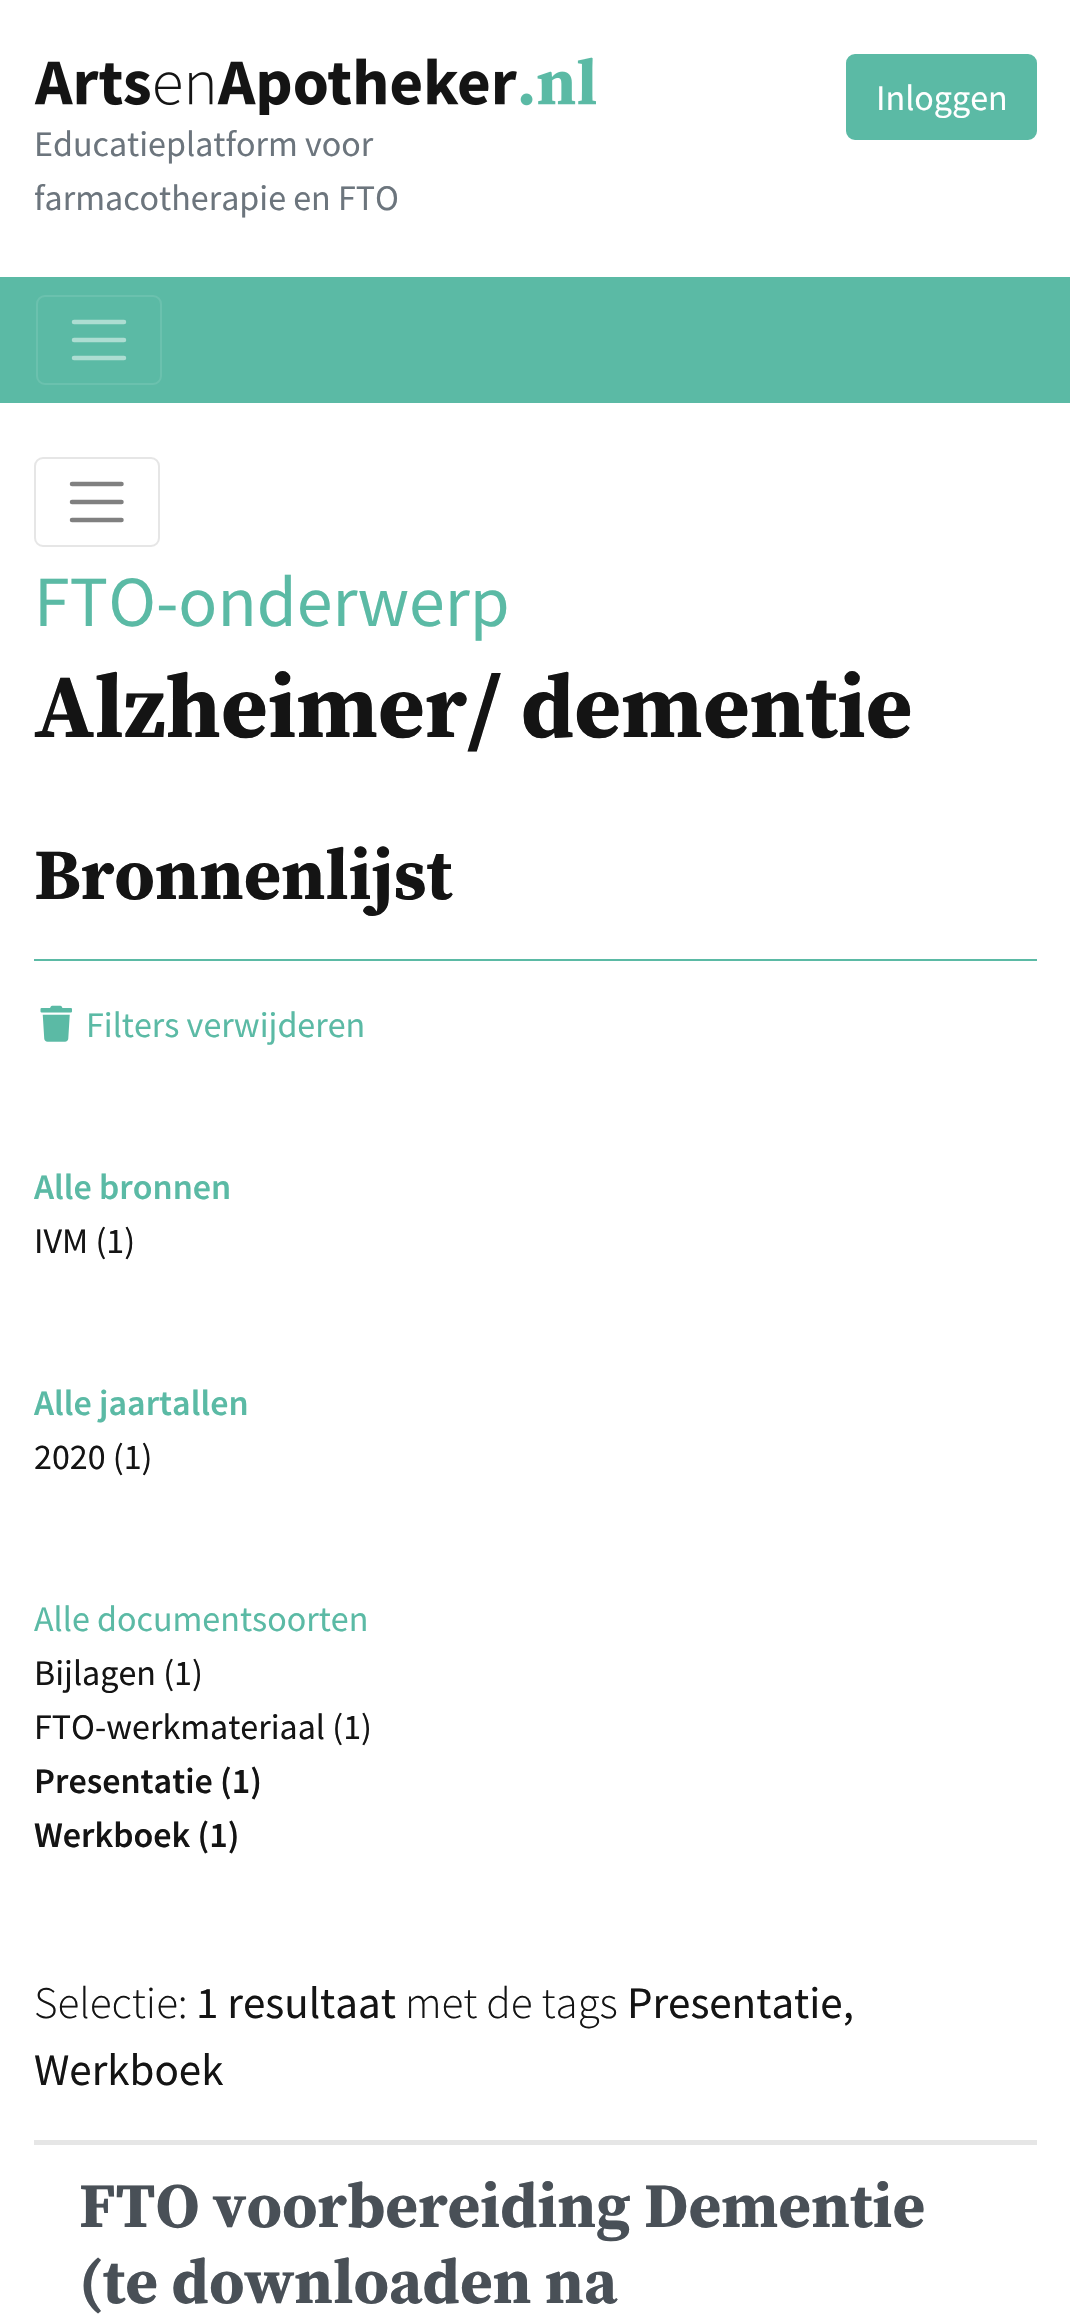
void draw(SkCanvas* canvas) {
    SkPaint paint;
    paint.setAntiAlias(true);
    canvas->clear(0xFFFFFFFF);
    paint.setColor(0xFF5BBAA5);
    canvas->drawRoundRect(SkRect::MakeXYWH(847, 55, 189, 84), 8, 8, paint);
    paint.setStyle(SkPaint::kStroke_Style);
    paint.setStrokeWidth(2);
    canvas->drawRoundRect(SkRect::MakeXYWH(847, 55, 189, 84), 8, 8, paint);
    SkFont font1(fontMgr->matchFamilyStyle("Source Sans Pro", SkFontStyle::Normal()), 36);
    font1.setSubpixel(true);
    paint.setStyle(SkPaint::kFill_Style);
    paint.setColor(0xFFFFFFFF);
    canvas->drawString("Inloggen", 876, 110, font1, paint);
    canvas->drawImageRect(SkImages::DeferredFromEncodedData(SkData::MakeFromFileName("img1.png")), SkRect::MakeXYWH(34, 57, 562, 58), SkSamplingOptions());
    paint.setColor(0xFF6C757D);
    canvas->drawString("Educatieplatform voor", 34, 156, font1, paint);
    canvas->drawString("farmacotherapie en FTO", 34, 210, font1, paint);
    paint.setColor(0xFF5BBAA5);
    canvas->drawRect(SkRect::MakeXYWH(0, 277, 1070, 126), paint);
    paint.setStyle(SkPaint::kStroke_Style);
    paint.setColor(0xFF6BC1AE);
    canvas->drawRoundRect(SkRect::MakeXYWH(37, 296, 124, 88), 8, 8, paint);
    paint.setStrokeWidth(4.5f);
    paint.setStrokeCap(SkPaint::kRound_Cap);
    paint.setColor(0xFFADDDD2);
    canvas->drawPath(SkPathBuilder().moveTo(74, 322).lineTo(124, 322).moveTo(74, 340).lineTo(124, 340).moveTo(74, 358).lineTo(124, 358).detach(), paint);
    paint.setStrokeWidth(2);
    paint.setStrokeCap(SkPaint::kButt_Cap);
    paint.setColor(0xFFE6E6E6);
    canvas->drawRoundRect(SkRect::MakeXYWH(35, 458, 124, 88), 8, 8, paint);
    paint.setStrokeWidth(4.5f);
    paint.setStrokeCap(SkPaint::kRound_Cap);
    paint.setColor(0xFF808080);
    canvas->drawPath(SkPathBuilder().moveTo(72, 484).lineTo(121.5f, 484).moveTo(72, 502).lineTo(121.5f, 502).moveTo(72, 520).lineTo(121.5f, 520).detach(), paint);
    SkFont font2(fontMgr->matchFamilyStyle("Source Sans Pro", SkFontStyle::Normal()), 72);
    font2.setSubpixel(true);
    paint.setStyle(SkPaint::kFill_Style);
    paint.setColor(0xFF5BBAA5);
    canvas->drawString("FTO-onderwerp", 34, 626, font2, paint);
    SkFont font3(fontMgr->matchFamilyStyle("Source Serif Pro", SkFontStyle::Bold()), 90);
    font3.setSubpixel(true);
    paint.setColor(0xFF141414);
    canvas->drawString("Alzheimer/ dementie", 34, 737, font3, paint);
    SkFont font4(fontMgr->matchFamilyStyle("Source Serif Pro", SkFontStyle::Bold()), 72);
    font4.setSubpixel(true);
    canvas->drawString("Bronnenlijst", 34, 899, font4, paint);
    paint.setColor(0xFF5BBAA5);
    canvas->drawRect(SkRect::MakeXYWH(34, 959, 1003, 2), paint);
    canvas->drawImageRect(SkImages::DeferredFromEncodedData(SkData::MakeFromFileName("img2.png")), SkRect::MakeXYWH(40, 1005, 32, 37), SkSamplingOptions());
    canvas->drawString("Filters verwijderen", 86, 1037, font1, paint);
    SkFont font5(fontMgr->matchFamilyStyle("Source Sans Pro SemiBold", SkFontStyle(600, SkFontStyle::kNormal_Width, SkFontStyle::kUpright_Slant)), 36);
    font5.setSubpixel(true);
    canvas->drawString("Alle bronnen", 34, 1199, font5, paint);
    paint.setColor(0xFF141414);
    canvas->drawString("IVM (1)", 34, 1253, font1, paint);
    paint.setColor(0xFF5BBAA5);
    canvas->drawString("Alle jaartallen", 34, 1415, font5, paint);
    paint.setColor(0xFF141414);
    canvas->drawString("2020 (1)", 34, 1469, font1, paint);
    paint.setColor(0xFF5BBAA5);
    canvas->drawString("Alle documentsoorten", 34, 1631, font1, paint);
    paint.setColor(0xFF141414);
    canvas->drawString("Bijlagen (1)", 34, 1685, font1, paint);
    canvas->drawString("FTO-werkmateriaal (1)", 34, 1739, font1, paint);
    canvas->drawString("Presentatie (1)", 34, 1793, font5, paint);
    canvas->drawString("Werkboek (1)", 34, 1847, font5, paint);
    SkFont font6(fontMgr->matchFamilyStyle("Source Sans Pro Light", SkFontStyle(300, SkFontStyle::kNormal_Width, SkFontStyle::kUpright_Slant)), 45);
    font6.setSubpixel(true);
    canvas->drawString("Selectie:", 34, 2018, font6, paint);
    SkFont font7(fontMgr->matchFamilyStyle("Source Sans Pro", SkFontStyle::Normal()), 45);
    font7.setSubpixel(true);
    canvas->drawString("1 resultaat", 196, 2018, font7, paint);
    canvas->drawString("met de tags", 405, 2018, font6, paint);
    canvas->drawString("Presentatie,", 627, 2018, font7, paint);
    canvas->drawString("Werkboek", 34, 2085, font7, paint);
    paint.setColor(0xFFE6E6E6);
    canvas->drawRect(SkRect::MakeXYWH(34, 2140, 1003, 5), paint);
    SkFont font8(fontMgr->matchFamilyStyle("Source Serif Pro", SkFontStyle::Bold()), 63);
    font8.setSubpixel(true);
    paint.setColor(0xFF495057);
    canvas->drawString("FTO voorbereiding Dementie", 79, 2227, font8, paint);
    canvas->drawString("(te downloaden na", 79, 2303, font8, paint);
}
